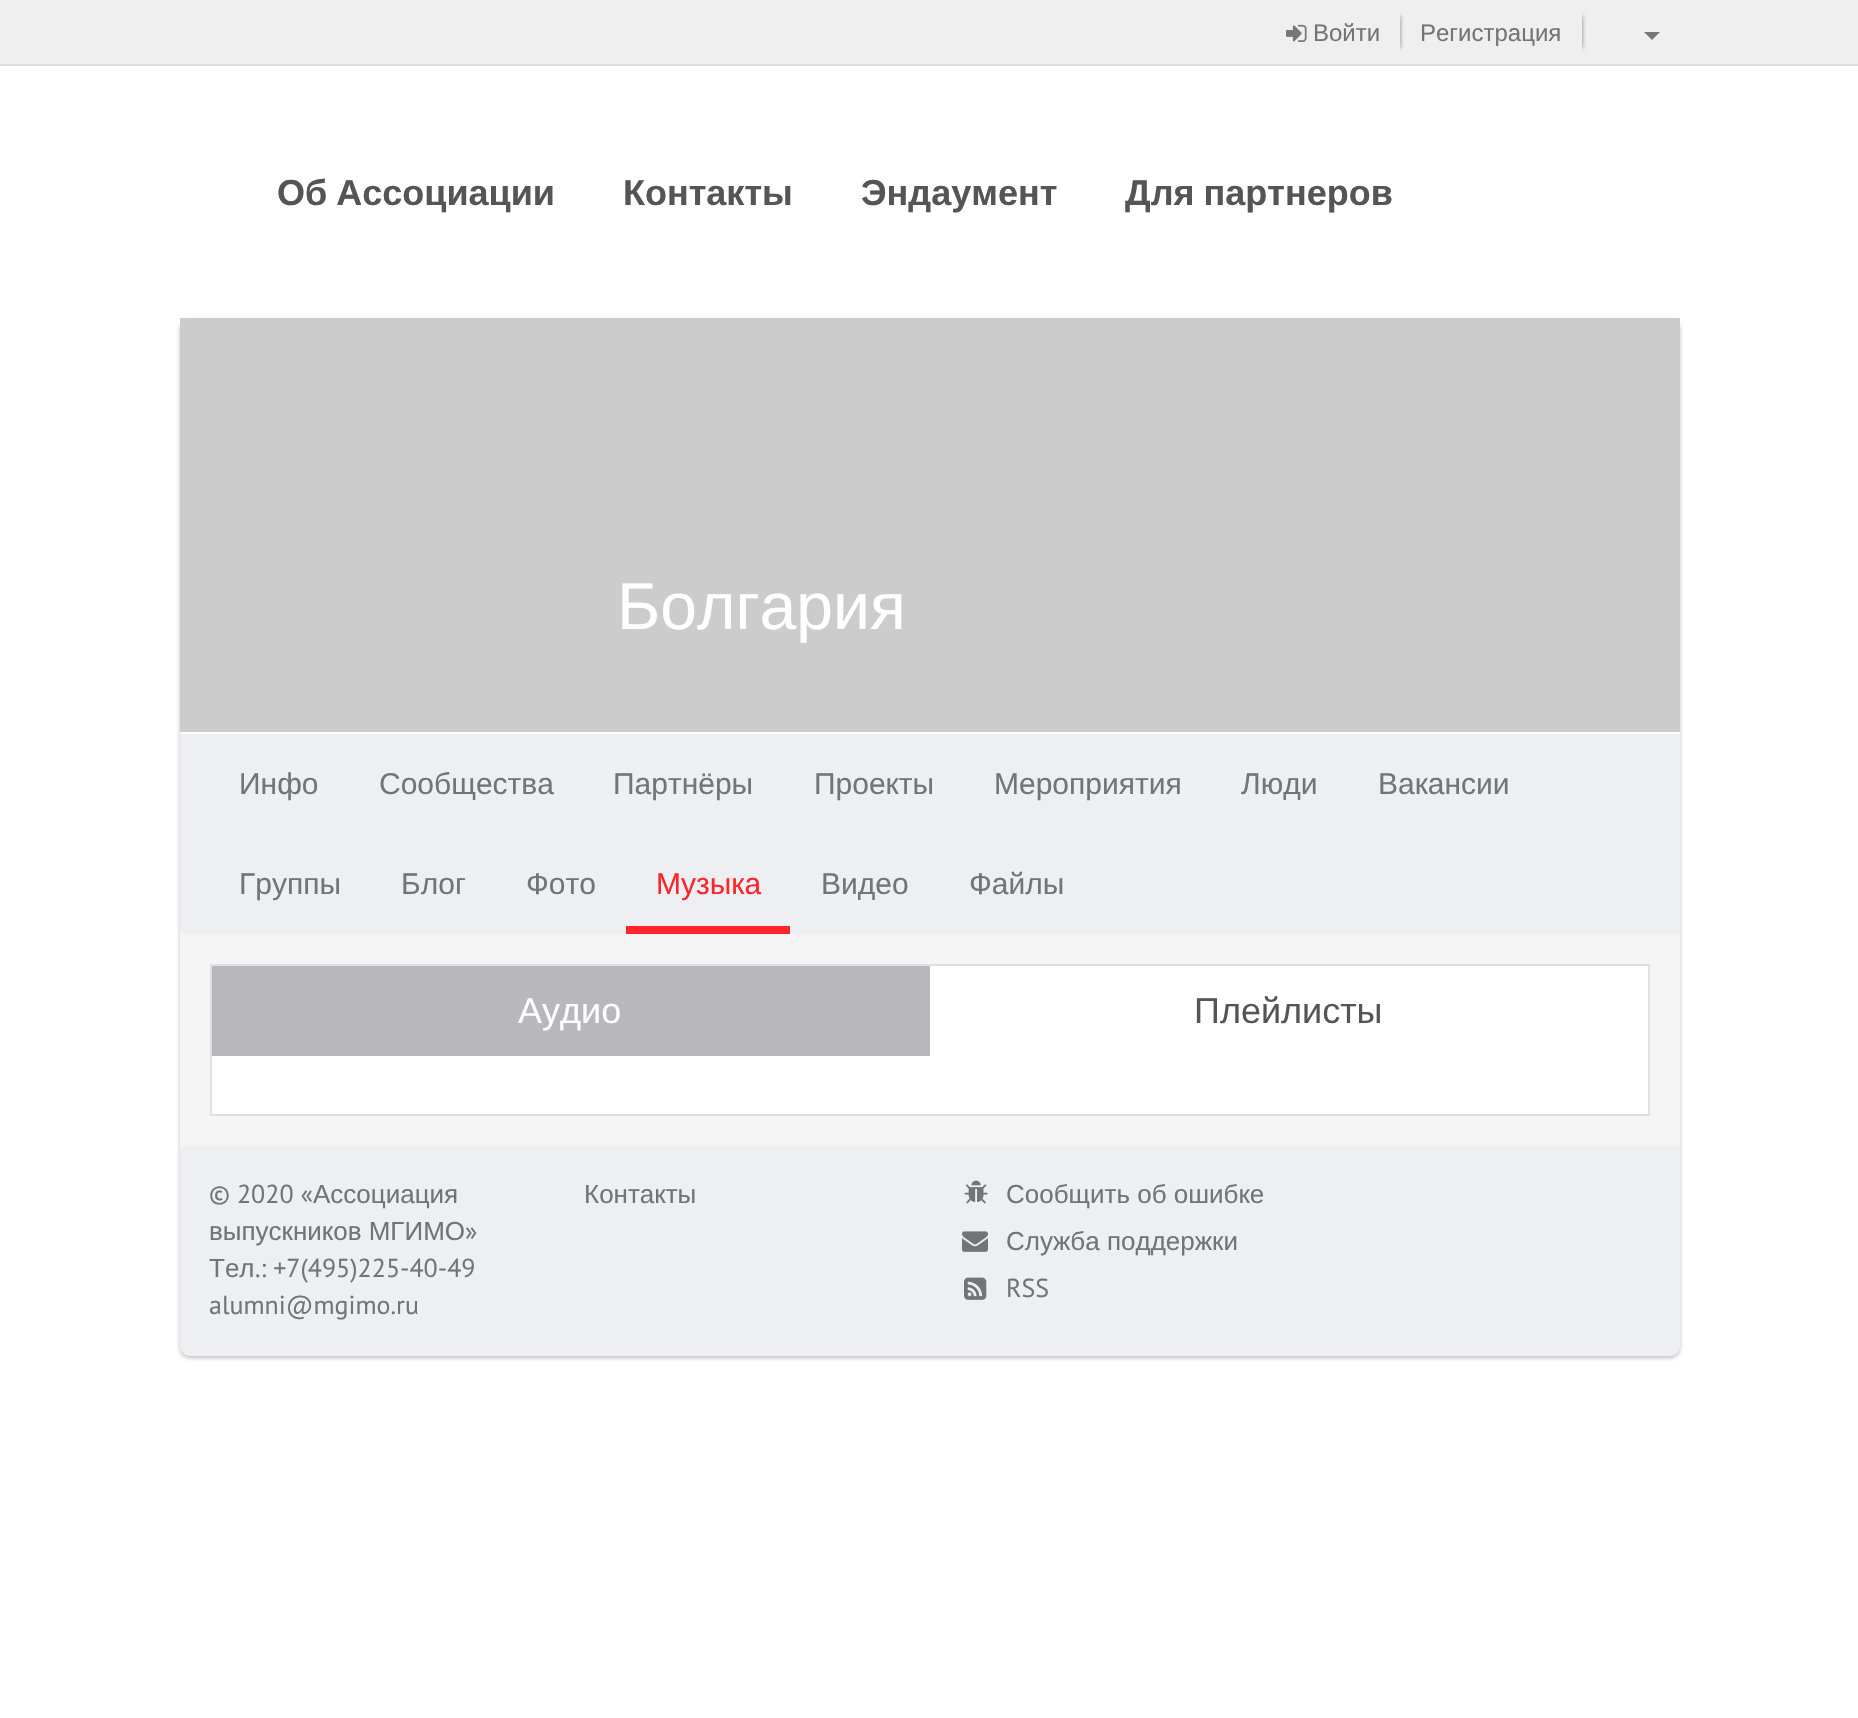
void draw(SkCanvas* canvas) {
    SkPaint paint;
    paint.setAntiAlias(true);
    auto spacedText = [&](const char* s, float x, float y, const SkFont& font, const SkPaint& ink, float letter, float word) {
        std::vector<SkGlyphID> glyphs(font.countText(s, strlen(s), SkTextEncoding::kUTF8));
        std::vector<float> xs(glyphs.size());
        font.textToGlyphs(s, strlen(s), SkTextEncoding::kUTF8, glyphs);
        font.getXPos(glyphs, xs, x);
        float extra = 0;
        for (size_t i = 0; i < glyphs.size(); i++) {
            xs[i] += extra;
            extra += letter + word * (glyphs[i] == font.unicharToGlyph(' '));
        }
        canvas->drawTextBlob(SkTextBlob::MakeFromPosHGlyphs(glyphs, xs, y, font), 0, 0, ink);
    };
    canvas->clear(0xFFFFFFFF);
    paint.setColor(0xFFEFEFEF);
    canvas->drawRect(SkRect::MakeXYWH(0, 0, 1858, 64), paint);
    paint.setColor(0xFFDEDEDE);
    canvas->drawRect(SkRect::MakeXYWH(0, 64, 1858, 2), paint);
    canvas->save();
    canvas->clipRect(SkRect::MakeXYWH(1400, 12, 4, 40));
    paint.setColor(0xE6000000);
    paint.setMaskFilter(SkMaskFilter::MakeBlur(kNormal_SkBlurStyle, 3));
    canvas->drawRect(SkRect::MakeXYWH(1296, 16, 102, 32), paint);
    paint.setMaskFilter(nullptr);
    canvas->restore();
    canvas->drawImageRect(SkImages::DeferredFromEncodedData(SkData::MakeFromFileName("img1.png")), SkRect::MakeXYWH(1286, 24, 21, 18), SkSamplingOptions());
    SkFont font1(fontMgr->matchFamilyStyle("Liberation Sans", SkFontStyle::Normal()), 24);
    font1.setSubpixel(true);
    paint.setColor(0xFF737478);
    canvas->drawString("Войти", 1313, 41, font1, paint);
    canvas->save();
    canvas->clipRect(SkRect::MakeXYWH(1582, 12, 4, 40));
    paint.setColor(0xE6000000);
    paint.setMaskFilter(SkMaskFilter::MakeBlur(kNormal_SkBlurStyle, 3));
    canvas->drawRect(SkRect::MakeXYWH(1430, 16, 150, 32), paint);
    paint.setMaskFilter(nullptr);
    canvas->restore();
    paint.setColor(0xFF737478);
    canvas->drawString("Регистрация", 1420, 41, font1, paint);
    paint.setColor(0xFF777777);
    canvas->drawPath(SkPathBuilder().moveTo(1644, 32).lineTo(1660, 32).lineTo(1652, 40).close().detach(), paint);
    SkFont font2(fontMgr->matchFamilyStyle("Liberation Sans", SkFontStyle::Bold()), 36);
    font2.setSubpixel(true);
    paint.setColor(0xFF555555);
    spacedText("Об Ассоциации", 277, 205, font2, paint, 0, -1);
    canvas->drawString("Контакты", 623, 205, font2, paint);
    canvas->drawString("Эндаумент", 861, 205, font2, paint);
    spacedText("Для партнеров", 1125, 205, font2, paint, 0, -1);
    paint.setColor(0x40000000);
    paint.setMaskFilter(SkMaskFilter::MakeBlur(kNormal_SkBlurStyle, 2));
    canvas->drawRoundRect(SkRect::MakeXYWH(180, 320, 1500, 1038), 10, 10, paint);
    paint.setMaskFilter(nullptr);
    paint.setColor(0xFFEEEFF3);
    canvas->drawRect(SkRect::MakeXYWH(180, 734, 1500, 200), paint);
    paint.setColor(0xFFCCCCCC);
    canvas->drawRect(SkRect::MakeXYWH(180, 318, 1500, 414), paint);
    SkFont font3(fontMgr->matchFamilyStyle("Liberation Sans", SkFontStyle::Normal()), 66);
    font3.setSubpixel(true);
    paint.setColor(0xFFFFFFFF);
    canvas->drawString("Болгария", 617, 629, font3, paint);
    canvas->drawRect(SkRect::MakeXYWH(180, 732, 1500, 2), paint);
    SkFont font4(fontMgr->matchFamilyStyle("Liberation Sans", SkFontStyle::Normal()), 30);
    font4.setSubpixel(true);
    paint.setColor(0xFF737478);
    canvas->drawString("Инфо", 239, 794, font4, paint);
    canvas->drawString("Сообщества", 379, 794, font4, paint);
    canvas->drawString("Партнёры", 613, 794, font4, paint);
    canvas->drawString("Проекты", 814, 794, font4, paint);
    canvas->drawString("Мероприятия", 994, 794, font4, paint);
    canvas->drawString("Люди", 1241, 794, font4, paint);
    canvas->drawString("Вакансии", 1378, 794, font4, paint);
    canvas->drawString("Группы", 239, 894, font4, paint);
    canvas->drawString("Блог", 401, 894, font4, paint);
    canvas->drawString("Фото", 526, 894, font4, paint);
    paint.setColor(0xFFFF2529);
    canvas->drawRect(SkRect::MakeXYWH(626, 926, 164, 8), paint);
    canvas->drawString("Музыка", 656, 894, font4, paint);
    paint.setColor(0xFF737478);
    canvas->drawString("Видео", 821, 894, font4, paint);
    canvas->drawString("Файлы", 969, 894, font4, paint);
    paint.setColor(0xFFF5F5F5);
    canvas->drawRect(SkRect::MakeXYWH(180, 934, 1500, 212), paint);
    paint.setColor(0xFFB8B8BC);
    canvas->drawRect(SkRect::MakeXYWH(212, 966, 718, 90), paint);
    paint.setColor(0xFFE0E0E0);
    canvas->drawRect(SkRect::MakeXYWH(210, 964, 1440, 2), paint);
    canvas->drawRect(SkRect::MakeXYWH(1648, 1054, 2, 62), paint);
    canvas->drawRect(SkRect::MakeXYWH(210, 1114, 1440, 2), paint);
    canvas->drawRect(SkRect::MakeXYWH(210, 1054, 2, 62), paint);
    canvas->drawRect(SkRect::MakeXYWH(210, 964, 2, 92), paint);
    SkFont font5(fontMgr->matchFamilyStyle("Liberation Sans", SkFontStyle::Normal()), 36);
    font5.setSubpixel(true);
    paint.setColor(0xFFFFFFFF);
    canvas->drawString("Аудио", 518, 1023, font5, paint);
    canvas->drawRect(SkRect::MakeXYWH(930, 966, 718, 90), paint);
    paint.setColor(0xFFE0E0E0);
    canvas->drawRect(SkRect::MakeXYWH(1648, 964, 2, 92), paint);
    paint.setColor(0xFF555555);
    canvas->drawString("Плейлисты", 1194, 1023, font5, paint);
    paint.setColor(0xFFFFFFFF);
    canvas->drawRect(SkRect::MakeXYWH(212, 1056, 1436, 58), paint);
    paint.setColor(0xFFEEEFF3);
    canvas->drawPath(SkPathBuilder().moveTo(180, 1146).lineTo(1680, 1146).lineTo(1680, 1346).cubicTo(1680, 1351.5f, 1675.5f, 1356, 1670, 1356).lineTo(190, 1356).cubicTo(184.5f, 1356, 180, 1351.5f, 180, 1346).close().detach(), paint);
    SkFont font6(fontMgr->matchFamilyStyle("PT Sans", SkFontStyle::Normal()), 26);
    font6.setSubpixel(true);
    paint.setColor(0xFF737478);
    canvas->drawString("© 2020 «", 209, 1203, font6, paint);
    SkFont font7(fontMgr->matchFamilyStyle("Liberation Sans", SkFontStyle::Normal()), 26);
    font7.setSubpixel(true);
    canvas->drawString("Ассоциация", 313, 1203, font7, paint);
    canvas->drawString("выпускников МГИМО", 209, 1240, font7, paint);
    canvas->drawString("»", 465, 1240, font6, paint);
    canvas->drawString("Тел", 209, 1277, font7, paint);
    canvas->drawString(".: +7(495)225-40-49", 255, 1277, font6, paint);
    canvas->drawString("alumni@mgimo.ru", 209, 1314, font6, paint);
    canvas->drawString("Контакты", 584, 1203, font7, paint);
    canvas->drawImageRect(SkImages::DeferredFromEncodedData(SkData::MakeFromFileName("img2.png")), SkRect::MakeXYWH(964, 1180, 24, 24), SkSamplingOptions());
    canvas->drawString("Сообщить об ошибке", 1006, 1203, font7, paint);
    canvas->drawImageRect(SkImages::DeferredFromEncodedData(SkData::MakeFromFileName("img3.png")), SkRect::MakeXYWH(962, 1231, 26, 21), SkSamplingOptions());
    canvas->drawString("Служба поддержки", 1006, 1250, font7, paint);
    canvas->drawImageRect(SkImages::DeferredFromEncodedData(SkData::MakeFromFileName("img4.png")), SkRect::MakeXYWH(964, 1277, 23, 23), SkSamplingOptions());
    canvas->drawString("RSS", 1006, 1297, font6, paint);
}
